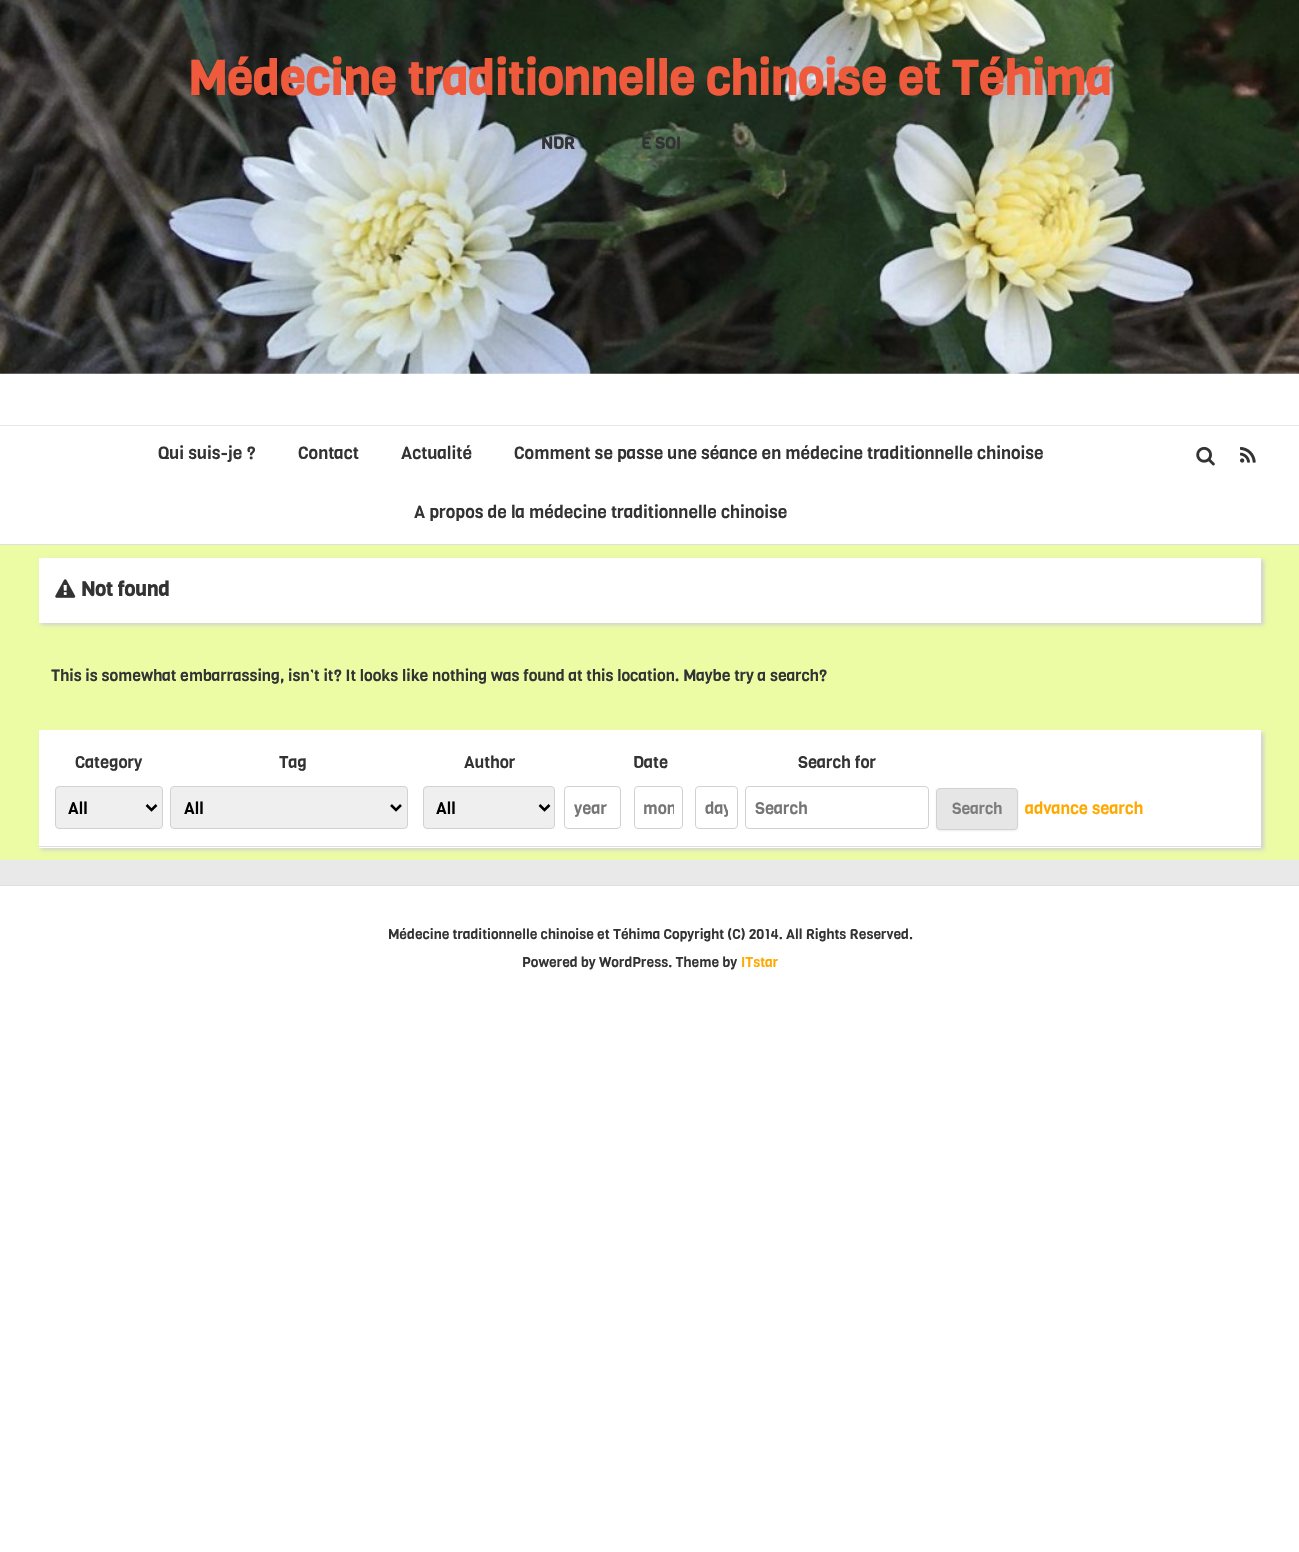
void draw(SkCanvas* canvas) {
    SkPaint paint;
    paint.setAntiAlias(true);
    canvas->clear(0xFFFFFFFF);
    canvas->drawImageRect(SkImages::DeferredFromEncodedData(SkData::MakeFromFileName("img1.png")), SkRect::MakeXYWH(0, 0, 1299, 374), SkSamplingOptions());
    canvas->save();
    canvas->clipPath(SkPathBuilder(SkPathFillType::kEvenOdd).moveTo(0, 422).lineTo(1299, 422).lineTo(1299, 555).lineTo(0, 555).close().moveTo(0, 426).lineTo(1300, 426).lineTo(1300, 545).lineTo(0, 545).close().detach(), true);
    paint.setColor(0xFFE9E9E9);
    paint.setMaskFilter(SkMaskFilter::MakeBlur(kNormal_SkBlurStyle, 2));
    canvas->drawRect(SkRect::MakeXYWH(3, 429, 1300, 119), paint);
    paint.setMaskFilter(nullptr);
    canvas->restore();
    canvas->drawRect(SkRect::MakeXYWH(0, 425, 1299, 1), paint);
    SkFont font1(fontMgr->matchFamilyStyle("Viga", SkFontStyle::Bold()), 47.5f);
    font1.setSubpixel(true);
    paint.setColor(0xFFF05A3C);
    canvas->drawString("Médecine traditionnelle chinoise et Téhima", 188, 95, font1, paint);
    SkFont font2(fontMgr->matchFamilyStyle("Viga", SkFontStyle::Bold()), 16.75f);
    font2.setSubpixel(true);
    paint.setColor(0xFF333333);
    canvas->drawString("NDR", 541, 149, font2, paint);
    canvas->drawString("E SOI", 641, 149, font2, paint);
    paint.setColor(0xFFDFDFDF);
    canvas->drawRect(SkRect::MakeXYWH(0, 544, 1299, 1), paint);
    SkFont font3(fontMgr->matchFamilyStyle("Viga", SkFontStyle::Normal()), 17.5f);
    font3.setSubpixel(true);
    paint.setColor(0xFF333333);
    canvas->drawString("Qui suis-je ?", 158, 459, font3, paint);
    canvas->drawString("Contact", 298, 459, font3, paint);
    canvas->drawString("Actualité", 401, 459, font3, paint);
    canvas->drawString("Comment se passe une séance en médecine traditionnelle chinoise", 514, 459, font3, paint);
    canvas->drawString("A propos de la médecine traditionnelle chinoise", 414, 518, font3, paint);
    canvas->drawImageRect(SkImages::DeferredFromEncodedData(SkData::MakeFromFileName("img2.png")), SkRect::MakeXYWH(1196, 446, 19, 20), SkSamplingOptions());
    canvas->drawImageRect(SkImages::DeferredFromEncodedData(SkData::MakeFromFileName("img3.png")), SkRect::MakeXYWH(1240, 446, 16, 17), SkSamplingOptions());
    paint.setColor(0xFFE9E9E9);
    canvas->drawRect(SkRect::MakeXYWH(0, 860, 1299, 25), paint);
    paint.setColor(0xFFECFCA5);
    canvas->drawRect(SkRect::MakeXYWH(0, 545, 1299, 315), paint);
    paint.setColor(0xFFD2D2D2);
    paint.setMaskFilter(SkMaskFilter::MakeBlur(kNormal_SkBlurStyle, 2));
    canvas->drawRect(SkRect::MakeXYWH(41, 560, 1223, 65), paint);
    paint.setMaskFilter(nullptr);
    paint.setColor(0xFFFFFFFF);
    canvas->drawRect(SkRect::MakeXYWH(39, 558, 1222, 65), paint);
    canvas->drawImageRect(SkImages::DeferredFromEncodedData(SkData::MakeFromFileName("img4.png")), SkRect::MakeXYWH(55, 579, 21, 19), SkSamplingOptions());
    SkFont font4(fontMgr->matchFamilyStyle("Viga", SkFontStyle::Bold()), 20);
    font4.setSubpixel(true);
    paint.setColor(0xFF333333);
    canvas->drawString("Not found", 81, 596, font4, paint);
    SkFont font5(fontMgr->matchFamilyStyle("Viga", SkFontStyle::Normal()), 16);
    font5.setSubpixel(true);
    canvas->drawString("This is somewhat embarrassing, isn’t it? It looks like nothing was found at this location. Maybe try a search?", 51, 681, font5, paint);
    paint.setColor(0xFFD2D2D2);
    paint.setMaskFilter(SkMaskFilter::MakeBlur(kNormal_SkBlurStyle, 2));
    canvas->drawRect(SkRect::MakeXYWH(41, 733, 1223, 117), paint);
    paint.setMaskFilter(nullptr);
    paint.setColor(0xFFFFFFFF);
    canvas->drawRect(SkRect::MakeXYWH(39, 730, 1222, 118), paint);
    paint.setColor(0xFFDFDFDF);
    canvas->drawRect(SkRect::MakeXYWH(39, 846, 1222, 1), paint);
    SkFont font6(fontMgr->matchFamilyStyle("Viga", SkFontStyle::Normal()), 16.75f);
    font6.setSubpixel(true);
    paint.setColor(0xFF333333);
    canvas->drawString("Category", 75, 768, font6, paint);
    paint.setColor(0xFFEFEFEF);
    canvas->drawRoundRect(SkRect::MakeXYWH(55.5f, 786.5f, 107, 42), 3.5f, 3.5f, paint);
    paint.setStyle(SkPaint::kStroke_Style);
    paint.setStrokeWidth(1);
    paint.setColor(0xFFD2D2D2);
    canvas->drawRoundRect(SkRect::MakeXYWH(55.5f, 786.5f, 107, 42), 3.5f, 3.5f, paint);
    paint.setStrokeWidth(2.5f);
    paint.setColor(0xFF000000);
    canvas->drawPath(SkPathBuilder().moveTo(146.5f, 805).lineTo(151.5f, 810).lineTo(156.5f, 805).detach(), paint);
    paint.setStyle(SkPaint::kFill_Style);
    canvas->drawString("All", 68, 814, font6, paint);
    paint.setColor(0xFF333333);
    canvas->drawString("Tag", 279, 768, font6, paint);
    paint.setColor(0xFFEFEFEF);
    canvas->drawRoundRect(SkRect::MakeXYWH(170.5f, 786.5f, 237, 42), 3.5f, 3.5f, paint);
    paint.setStyle(SkPaint::kStroke_Style);
    paint.setStrokeWidth(1);
    paint.setColor(0xFFD2D2D2);
    canvas->drawRoundRect(SkRect::MakeXYWH(170.5f, 786.5f, 237, 42), 3.5f, 3.5f, paint);
    paint.setStrokeWidth(2.5f);
    paint.setColor(0xFF000000);
    canvas->drawPath(SkPathBuilder().moveTo(391, 805).lineTo(396, 810).lineTo(401, 805).detach(), paint);
    paint.setStyle(SkPaint::kFill_Style);
    canvas->drawString("All", 184, 814, font6, paint);
    paint.setColor(0xFF333333);
    canvas->drawString("Author", 464, 768, font6, paint);
    paint.setColor(0xFFEFEFEF);
    canvas->drawRoundRect(SkRect::MakeXYWH(423.5f, 786.5f, 131, 42), 3.5f, 3.5f, paint);
    paint.setStyle(SkPaint::kStroke_Style);
    paint.setStrokeWidth(1);
    paint.setColor(0xFFD2D2D2);
    canvas->drawRoundRect(SkRect::MakeXYWH(423.5f, 786.5f, 131, 42), 3.5f, 3.5f, paint);
    paint.setStrokeWidth(2.5f);
    paint.setColor(0xFF000000);
    canvas->drawPath(SkPathBuilder().moveTo(539.5f, 805).lineTo(544.5f, 810).lineTo(549.5f, 805).detach(), paint);
    paint.setStyle(SkPaint::kFill_Style);
    canvas->drawString("All", 436, 814, font6, paint);
    paint.setColor(0xFF333333);
    canvas->drawString("Date", 633, 768, font6, paint);
    paint.setStyle(SkPaint::kStroke_Style);
    paint.setStrokeWidth(1);
    paint.setColor(0xFFD2D2D2);
    canvas->drawRoundRect(SkRect::MakeXYWH(564.5f, 786.5f, 56, 42), 3.5f, 3.5f, paint);
    paint.setStyle(SkPaint::kFill_Style);
    paint.setColor(0xFF757575);
    canvas->drawString("year", 574, 814, font6, paint);
    paint.setStyle(SkPaint::kStroke_Style);
    paint.setColor(0xFFD2D2D2);
    canvas->drawRoundRect(SkRect::MakeXYWH(634.5f, 786.5f, 48, 42), 3.5f, 3.5f, paint);
    canvas->save();
    canvas->clipRect(SkRect::MakeXYWH(644, 796, 30, 23));
    paint.setStyle(SkPaint::kFill_Style);
    paint.setColor(0xFF757575);
    canvas->drawString("mon", 643, 814, font6, paint);
    canvas->restore();
    paint.setStyle(SkPaint::kStroke_Style);
    paint.setColor(0xFFD2D2D2);
    canvas->drawRoundRect(SkRect::MakeXYWH(695.5f, 786.5f, 42, 42), 3.5f, 3.5f, paint);
    canvas->save();
    canvas->clipRect(SkRect::MakeXYWH(705, 796, 23, 23));
    paint.setStyle(SkPaint::kFill_Style);
    paint.setColor(0xFF757575);
    canvas->drawString("day", 705, 814, font6, paint);
    canvas->restore();
    paint.setColor(0xFF333333);
    canvas->drawString("Search for", 798, 768, font6, paint);
    paint.setStyle(SkPaint::kStroke_Style);
    paint.setColor(0xFFD2D2D2);
    canvas->drawRoundRect(SkRect::MakeXYWH(745.5f, 786.5f, 183, 42), 3.5f, 3.5f, paint);
    paint.setStyle(SkPaint::kFill_Style);
    paint.setColor(0xFF757575);
    canvas->drawString("Search", 755, 814, font6, paint);
    paint.setColor(0x1A404040);
    paint.setMaskFilter(SkMaskFilter::MakeBlur(kNormal_SkBlurStyle, 1));
    canvas->drawRoundRect(SkRect::MakeXYWH(936, 789, 82, 42), 4, 4, paint);
    paint.setMaskFilter(nullptr);
    paint.setColor(0xFFE6E6E6);
    canvas->drawRoundRect(SkRect::MakeXYWH(936.5f, 788.5f, 81, 41), 3.5f, 3.5f, paint);
    paint.setStyle(SkPaint::kStroke_Style);
    paint.setColor(0xFFD2D2D2);
    canvas->drawRoundRect(SkRect::MakeXYWH(936.5f, 788.5f, 81, 41), 3.5f, 3.5f, paint);
    paint.setStyle(SkPaint::kFill_Style);
    paint.setColor(0xFF7C7C7C);
    canvas->drawString("Search", 952, 814, font5, paint);
    paint.setColor(0xFFFFA900);
    canvas->drawString("advance search", 1025, 814, font6, paint);
    paint.setColor(0xFFDFDFDF);
    canvas->drawRect(SkRect::MakeXYWH(0, 885, 1299, 1), paint);
    SkFont font7(fontMgr->matchFamilyStyle("Viga", SkFontStyle::Normal()), 14);
    font7.setSubpixel(true);
    paint.setColor(0xFF333333);
    canvas->drawString("Médecine traditionnelle chinoise et Téhima Copyright (C) 2014. All Rights Reserved.", 388, 939, font7, paint);
    canvas->drawString("Powered by WordPress. Theme by", 522, 967, font7, paint);
    paint.setColor(0xFFFFA900);
    canvas->drawString("ITstar", 741, 967, font7, paint);
}
